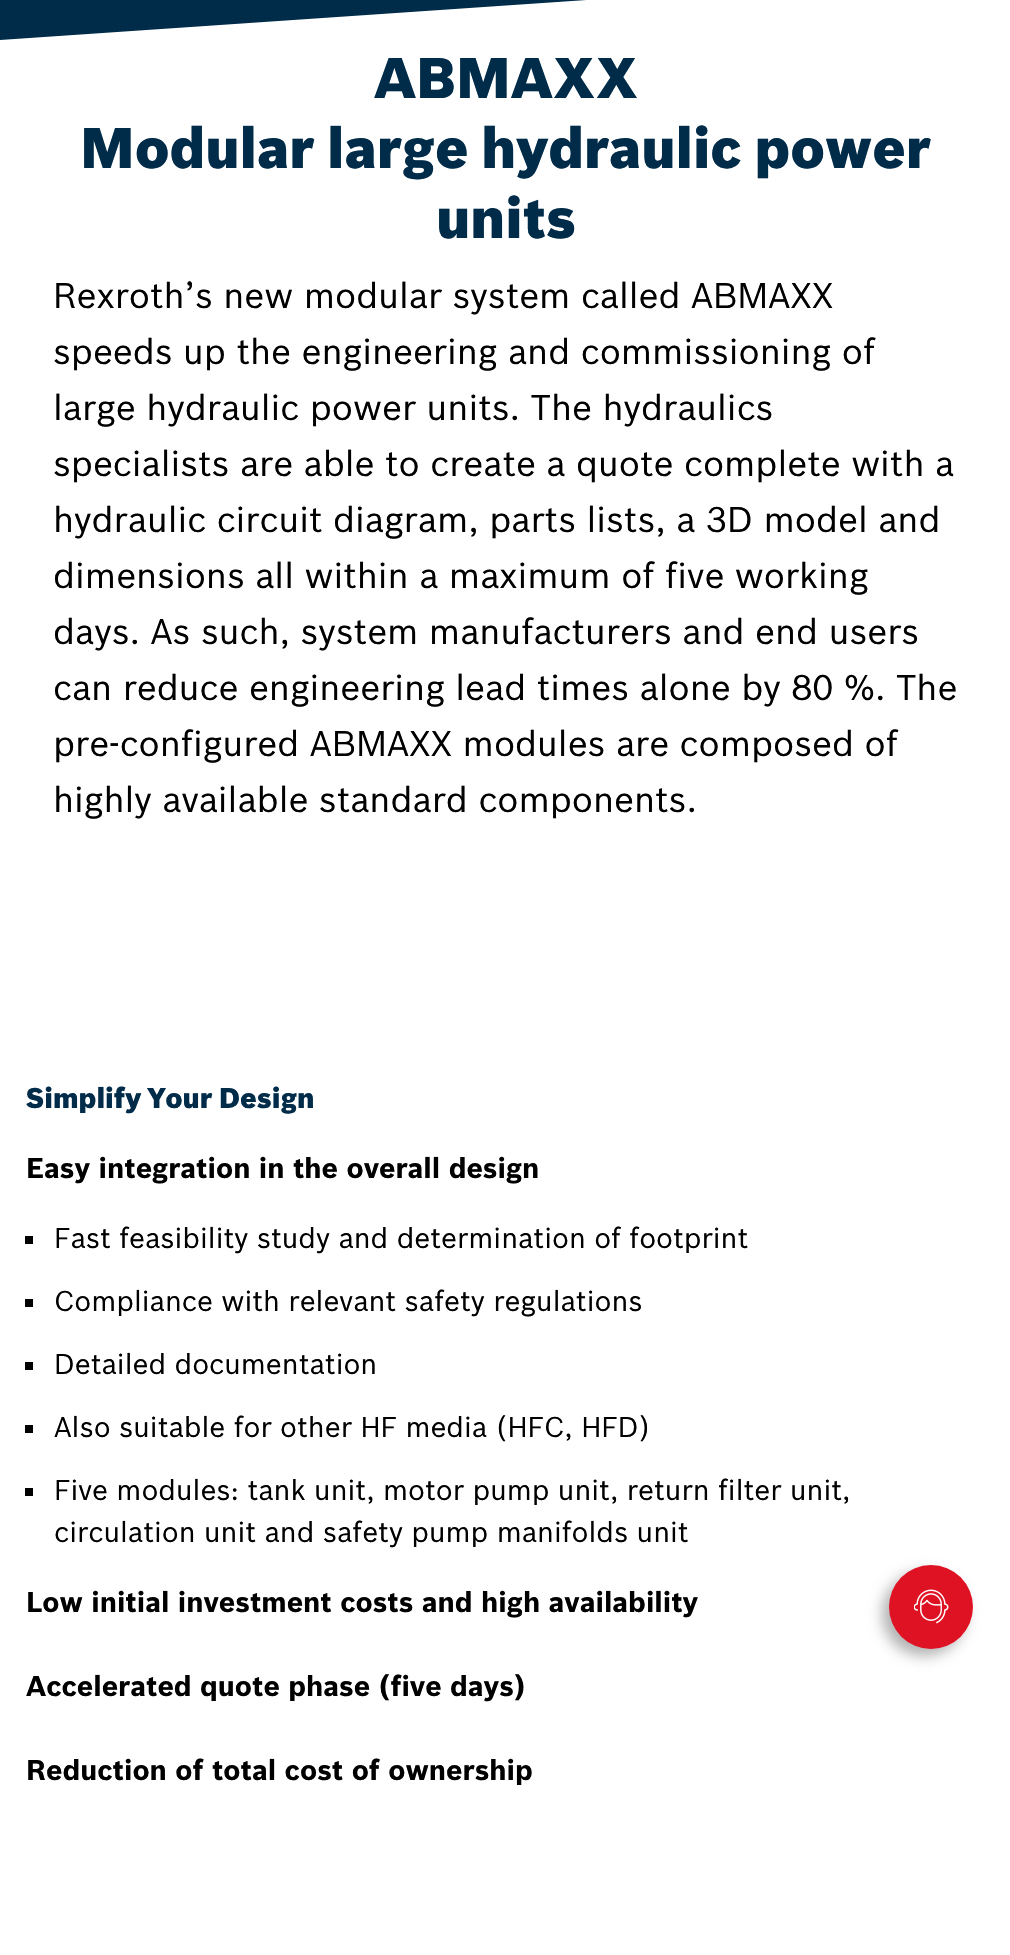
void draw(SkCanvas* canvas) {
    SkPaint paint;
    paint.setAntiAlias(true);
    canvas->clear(0xFFFFFFFF);
    paint.setColor(0xFF002B49);
    canvas->drawPath(SkPathBuilder().moveTo(0, -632).lineTo(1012, -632).lineTo(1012, -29).lineTo(0, 40).close().detach(), paint);
    SkFont font1(fontMgr->matchFamilyStyle("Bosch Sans", SkFontStyle(900, SkFontStyle::kNormal_Width, SkFontStyle::kUpright_Slant)), 56);
    font1.setSubpixel(true);
    canvas->drawString("ABMAXX", 374, 98, font1, paint);
    canvas->drawString("Modular large hydraulic power", 80, 168, font1, paint);
    canvas->drawString("units", 436, 238, font1, paint);
    SkFont font2(fontMgr->matchFamilyStyle("Bosch Sans", SkFontStyle::Normal()), 35);
    font2.setSubpixel(true);
    paint.setColor(0xFF000000);
    canvas->drawString("Rexroth’s new modular system called ABMAXX", 53, 308, font2, paint);
    canvas->drawString("speeds up the engineering and commissioning of", 53, 364, font2, paint);
    canvas->drawString("large hydraulic power units. The hydraulics", 53, 420, font2, paint);
    canvas->drawString("specialists are able to create a quote complete with a", 53, 476, font2, paint);
    canvas->drawString("hydraulic circuit diagram, parts lists, a 3D model and", 53, 532, font2, paint);
    canvas->drawString("dimensions all within a maximum of five working", 53, 588, font2, paint);
    canvas->drawString("days. As such, system manufacturers and end users", 53, 644, font2, paint);
    canvas->drawString("can reduce engineering lead times alone by 80 %. The", 53, 700, font2, paint);
    canvas->drawString("pre-configured ABMAXX modules are composed of", 53, 756, font2, paint);
    canvas->drawString("highly available standard components.", 53, 812, font2, paint);
    SkFont font3(fontMgr->matchFamilyStyle("Bosch Sans", SkFontStyle(900, SkFontStyle::kNormal_Width, SkFontStyle::kUpright_Slant)), 28);
    font3.setSubpixel(true);
    paint.setColor(0xFF002B49);
    canvas->drawString("Simplify Your Design", 26, 1108, font3, paint);
    SkFont font4(fontMgr->matchFamilyStyle("Bosch Sans", SkFontStyle::Bold()), 28);
    font4.setSubpixel(true);
    paint.setColor(0xFF000000);
    canvas->drawString("Easy integration in the overall design", 26, 1178, font4, paint);
    canvas->drawRect(SkRect::MakeXYWH(25, 1236, 8, 8), paint);
    SkFont font5(fontMgr->matchFamilyStyle("Bosch Sans", SkFontStyle::Normal()), 28);
    font5.setSubpixel(true);
    canvas->drawString("Fast feasibility study and determination of footprint", 54, 1248, font5, paint);
    canvas->drawRect(SkRect::MakeXYWH(25, 1299, 8, 8), paint);
    canvas->drawString("Compliance with relevant safety regulations", 54, 1311, font5, paint);
    canvas->drawRect(SkRect::MakeXYWH(25, 1362, 8, 8), paint);
    canvas->drawString("Detailed documentation", 54, 1374, font5, paint);
    canvas->drawRect(SkRect::MakeXYWH(25, 1425, 8, 8), paint);
    canvas->drawString("Also suitable for other HF media (HFC, HFD)", 54, 1437, font5, paint);
    canvas->drawRect(SkRect::MakeXYWH(25, 1488, 8, 8), paint);
    canvas->drawString("Five modules: tank unit, motor pump unit, return filter unit,", 54, 1500, font5, paint);
    canvas->drawString("circulation unit and safety pump manifolds unit", 54, 1542, font5, paint);
    canvas->drawString("Low initial investment costs and high availability", 26, 1612, font4, paint);
    canvas->drawString("Accelerated quote phase (five days)", 26, 1696, font4, paint);
    canvas->drawString("Reduction of total cost of ownership", 26, 1780, font4, paint);
    paint.setColor(0x4D000000);
    paint.setMaskFilter(SkMaskFilter::MakeBlur(kNormal_SkBlurStyle, 7));
    canvas->drawRoundRect(SkRect::MakeXYWH(882, 1572, 84, 84), 42, 42, paint);
    paint.setMaskFilter(nullptr);
    paint.setColor(0xFFDF1223);
    canvas->drawCircle(931, 1607, 42, paint);
    canvas->drawImageRect(SkImages::DeferredFromEncodedData(SkData::MakeFromFileName("img1.png")), SkRect::MakeXYWH(914, 1589, 35, 35), SkSamplingOptions());
}
